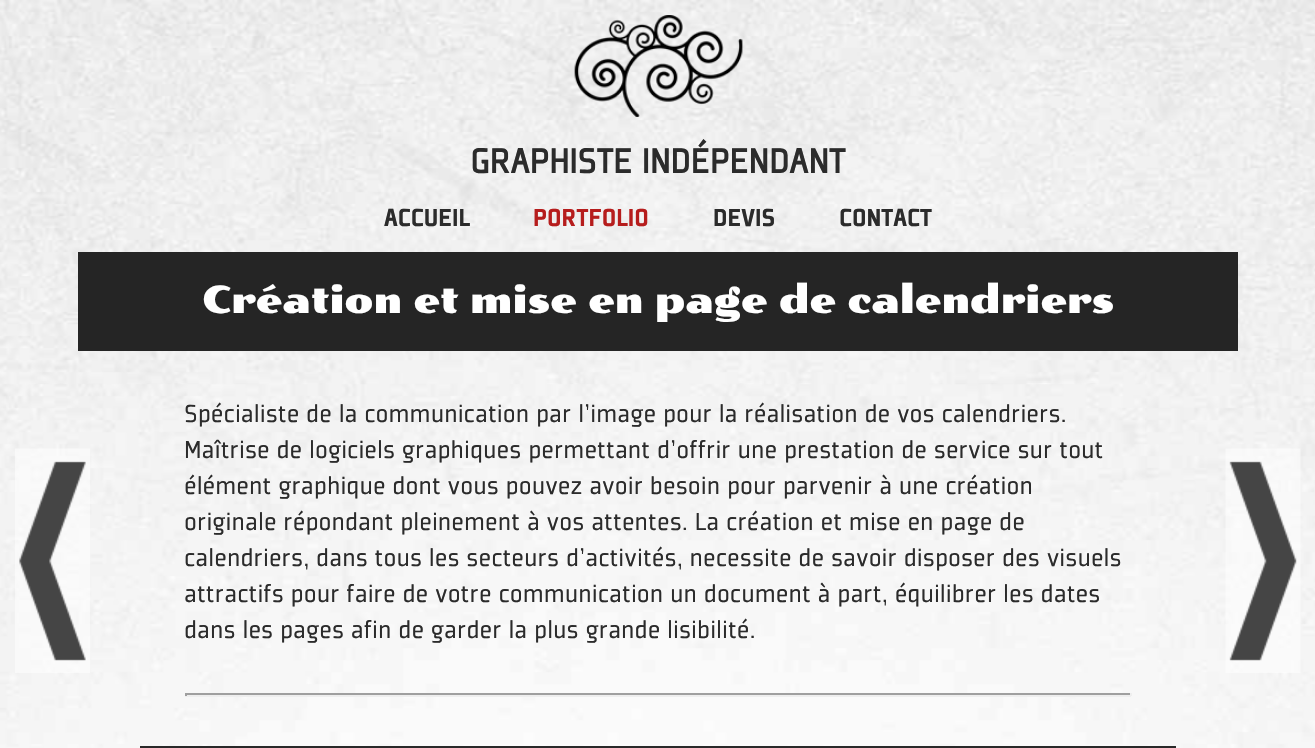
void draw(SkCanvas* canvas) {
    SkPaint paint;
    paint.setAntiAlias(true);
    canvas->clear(0xFFFFFFFF);
    canvas->drawImageRect(SkImages::DeferredFromEncodedData(SkData::MakeFromFileName("img1.png")), SkRect::MakeXYWH(0, 0, 1315, 748), SkSamplingOptions());
    canvas->drawImageRect(SkImages::DeferredFromEncodedData(SkData::MakeFromFileName("img2.png")), SkRect::MakeXYWH(574, 15, 169, 102), SkSamplingOptions());
    SkFont font1(fontMgr->matchFamilyStyle("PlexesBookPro", SkFontStyle::Bold()), 37.5f);
    font1.setSubpixel(true);
    paint.setColor(0xFF2B2B2B);
    canvas->drawString("GRAPHISTE INDÉPENDANT", 470, 173, font1, paint);
    SkFont font2(fontMgr->matchFamilyStyle("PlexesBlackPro", SkFontStyle(900, SkFontStyle::kNormal_Width, SkFontStyle::kUpright_Slant)), 27);
    font2.setSubpixel(true);
    canvas->drawString("ACCUEIL", 384, 226, font2, paint);
    paint.setColor(0xFFB61D1D);
    canvas->drawString("PORTFOLIO", 533, 226, font2, paint);
    paint.setColor(0xFF2B2B2B);
    canvas->drawString("DEVIS", 713, 226, font2, paint);
    canvas->drawString("CONTACT", 839, 226, font2, paint);
    canvas->drawImageRect(SkImages::DeferredFromEncodedData(SkData::MakeFromFileName("img3.png")), SkRect::MakeXYWH(15, 448, 75, 225), SkSamplingOptions());
    canvas->drawImageRect(SkImages::DeferredFromEncodedData(SkData::MakeFromFileName("img4.png")), SkRect::MakeXYWH(1225, 448, 76, 225), SkSamplingOptions());
    paint.setColor(0xFF252525);
    canvas->drawRect(SkRect::MakeXYWH(78, 252, 1160, 99), paint);
    SkFont font3(fontMgr->matchFamilyStyle("Poller One", SkFontStyle::Normal()), 37.5f);
    font3.setSubpixel(true);
    paint.setColor(0xFFFFFFFF);
    canvas->drawString("Création et mise en page de calendriers", 202, 313, font3, paint);
    SkFont font4(fontMgr->matchFamilyStyle("PlexesBookPro", SkFontStyle::Normal()), 27);
    font4.setSubpixel(true);
    paint.setColor(0xFF2B2B2B);
    canvas->drawString("Spécialiste de la communication par l'image pour la réalisation de vos calendriers.", 184, 422, font4, paint);
    canvas->drawString("Maîtrise de logiciels graphiques permettant d'offrir une prestation de service sur tout", 184, 458, font4, paint);
    canvas->drawString("élément graphique dont vous pouvez avoir besoin pour parvenir à une création", 184, 494, font4, paint);
    canvas->drawString("originale répondant pleinement à vos attentes. La création et mise en page de", 184, 530, font4, paint);
    canvas->drawString("calendriers, dans tous les secteurs d'activités, necessite de savoir disposer des visuels", 184, 566, font4, paint);
    canvas->drawString("attractifs pour faire de votre communication un document à part, équilibrer les dates", 184, 602, font4, paint);
    canvas->drawString("dans les pages afin de garder la plus grande lisibilité.", 184, 638, font4, paint);
    paint.setColor(0xFF9F9F9F);
    canvas->drawRect(SkRect::MakeXYWH(185, 693, 946, 2), paint);
    paint.setColor(0xFFEEEEEE);
    canvas->drawRect(SkRect::MakeXYWH(1130, 693, 2, 3), paint);
    canvas->drawRect(SkRect::MakeXYWH(185, 695, 946, 2), paint);
    paint.setColor(0xFF9F9F9F);
    canvas->drawRect(SkRect::MakeXYWH(185, 693, 2, 3), paint);
    paint.setStyle(SkPaint::kStroke_Style);
    paint.setStrokeWidth(3);
    paint.setColor(0xFF292929);
    canvas->drawRect(SkRect::MakeXYWH(141.5f, 747.5f, 1033, 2), paint);
}
